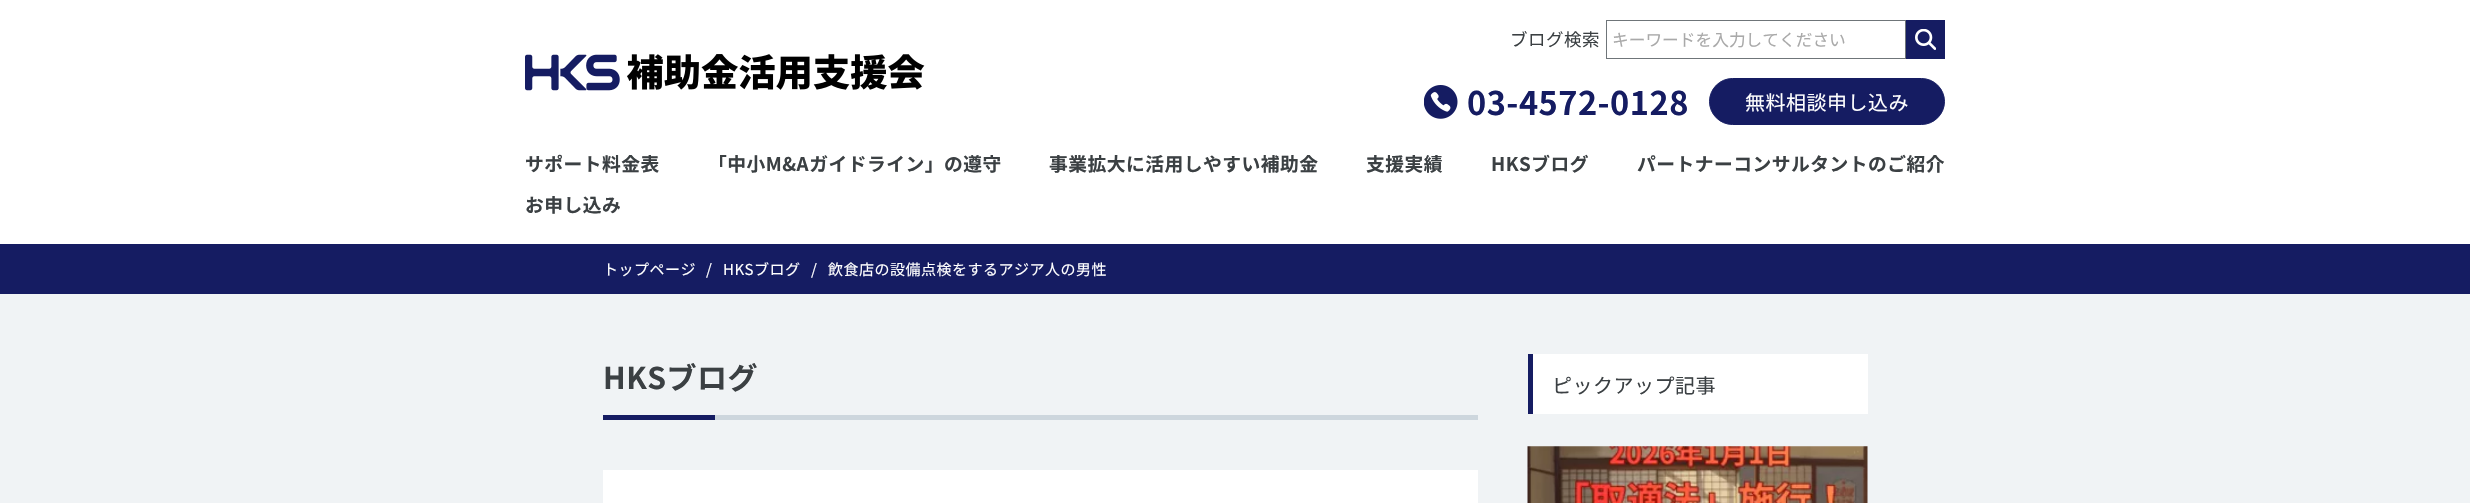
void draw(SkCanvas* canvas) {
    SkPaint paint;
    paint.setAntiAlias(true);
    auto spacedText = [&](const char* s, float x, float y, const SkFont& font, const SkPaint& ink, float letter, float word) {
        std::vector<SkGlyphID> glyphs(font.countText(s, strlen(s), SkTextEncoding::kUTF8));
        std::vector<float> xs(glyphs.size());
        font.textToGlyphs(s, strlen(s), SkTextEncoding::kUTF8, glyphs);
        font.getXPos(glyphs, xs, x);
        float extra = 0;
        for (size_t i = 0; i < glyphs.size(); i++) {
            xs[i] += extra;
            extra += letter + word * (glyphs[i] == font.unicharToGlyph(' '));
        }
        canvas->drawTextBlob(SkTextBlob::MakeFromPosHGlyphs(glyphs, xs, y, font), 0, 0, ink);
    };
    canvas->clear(0xFFFFFFFF);
    canvas->drawImageRect(SkImages::DeferredFromEncodedData(SkData::MakeFromFileName("img1.png")), SkRect::MakeXYWH(525, 54, 400, 37), SkSamplingOptions());
    SkFont font1(fontMgr->matchFamilyStyle("Noto Sans JP", SkFontStyle::Normal()), 17.5f);
    font1.setSubpixel(true);
    paint.setColor(0xFF3B4043);
    spacedText("ブログ検索", 1510, 46, font1, paint, 0.5f, 0);
    paint.setStyle(SkPaint::kStroke_Style);
    paint.setStrokeWidth(1);
    paint.setColor(0xFF6F7579);
    canvas->drawRect(SkRect::MakeXYWH(1606.5f, 20.5f, 299, 38), paint);
    SkFont font2(fontMgr->matchFamilyStyle("Noto Sans JP", SkFontStyle::Normal()), 16.7f);
    font2.setSubpixel(true);
    paint.setStyle(SkPaint::kFill_Style);
    paint.setColor(0xFFA9A9A9);
    canvas->drawString("キーワードを入力してください", 1612, 46, font2, paint);
    paint.setColor(0xFF151C62);
    canvas->drawRect(SkRect::MakeXYWH(1906, 20, 39, 39), paint);
    canvas->drawImageRect(SkImages::DeferredFromEncodedData(SkData::MakeFromFileName("img2.png")), SkRect::MakeXYWH(1915, 29, 21, 21), SkSamplingOptions());
    canvas->drawImageRect(SkImages::DeferredFromEncodedData(SkData::MakeFromFileName("img3.png")), SkRect::MakeXYWH(1424, 85, 34, 34), SkSamplingOptions());
    SkFont font3(fontMgr->matchFamilyStyle("Noto Sans JP", SkFontStyle::Bold()), 32.5f);
    font3.setSubpixel(true);
    spacedText("03-4572-0128", 1467, 115, font3, paint, 0.5f, 0);
    canvas->drawRoundRect(SkRect::MakeXYWH(1709.5f, 78.5f, 235, 46), 23, 23, paint);
    paint.setStyle(SkPaint::kStroke_Style);
    canvas->drawRoundRect(SkRect::MakeXYWH(1709.5f, 78.5f, 235, 46), 23, 23, paint);
    SkFont font4(fontMgr->matchFamilyStyle("Noto Sans JP", SkFontStyle::Normal()), 20);
    font4.setSubpixel(true);
    paint.setStyle(SkPaint::kFill_Style);
    paint.setColor(0xFFFFFFFF);
    spacedText("無料相談申し込み", 1745, 110, font4, paint, 0.5f, 0);
    SkFont font5(fontMgr->matchFamilyStyle("Noto Sans JP", SkFontStyle::Bold()), 18.75f);
    font5.setSubpixel(true);
    paint.setColor(0xFF3B4043);
    spacedText("サポート料金表", 525, 171, font5, paint, 0.5f, 0);
    spacedText("「中小M&Aガイドライン」の遵守", 708, 171, font5, paint, 0.5f, 0);
    spacedText("事業拡大に活用しやすい補助金", 1049, 171, font5, paint, 0.5f, 0);
    spacedText("支援実績", 1366, 171, font5, paint, 0.5f, 0);
    spacedText("HKSブログ", 1491, 171, font5, paint, 0.5f, 0);
    spacedText("パートナーコンサルタントのご紹介", 1637, 171, font5, paint, 0.5f, 0);
    spacedText("お申し込み", 525, 212, font5, paint, 0.5f, 0);
    paint.setColor(0xFF151C62);
    canvas->drawRect(SkRect::MakeXYWH(0, 244, 2470, 50), paint);
    SkFont font6(fontMgr->matchFamilyStyle("Noto Sans JP", SkFontStyle::Normal()), 15);
    font6.setSubpixel(true);
    paint.setColor(0xFFFFFFFF);
    spacedText("トップページ", 603, 275, font6, paint, 0.5f, 0);
    spacedText("/", 706, 275, font6, paint, 0.5f, 0);
    spacedText("HKSブログ", 723, 275, font6, paint, 0.5f, 0);
    spacedText("/", 811, 275, font6, paint, 0.5f, 0);
    spacedText("飲食店の設備点検をするアジア人の男性", 828, 275, font6, paint, 0.5f, 0);
    paint.setColor(0xFFF0F3F5);
    canvas->drawRect(SkRect::MakeXYWH(0, 294, 2470, 209), paint);
    paint.setColor(0xFFCDD6DD);
    canvas->drawRect(SkRect::MakeXYWH(715, 415, 763, 5), paint);
    SkFont font7(fontMgr->matchFamilyStyle("Noto Sans JP", SkFontStyle::Bold()), 30);
    font7.setSubpixel(true);
    paint.setColor(0xFF3B4043);
    spacedText("HKSブログ", 603, 389, font7, paint, 0.5f, 0);
    paint.setColor(0xFF151C62);
    canvas->drawRect(SkRect::MakeXYWH(603, 415, 112, 5), paint);
    paint.setColor(0xFFFFFFFF);
    canvas->drawRect(SkRect::MakeXYWH(603, 470, 875, 33), paint);
    canvas->drawRect(SkRect::MakeXYWH(1533, 354, 335, 60), paint);
    paint.setColor(0xFF151C62);
    canvas->drawRect(SkRect::MakeXYWH(1528, 354, 5, 60), paint);
    paint.setColor(0xFF3B4043);
    spacedText("ピックアップ記事", 1552, 393, font4, paint, 0.5f, 0);
    canvas->drawImageRect(SkImages::DeferredFromEncodedData(SkData::MakeFromFileName("img4.png")), SkRect::MakeXYWH(1527, 446, 341, 57), SkSamplingOptions());
}
